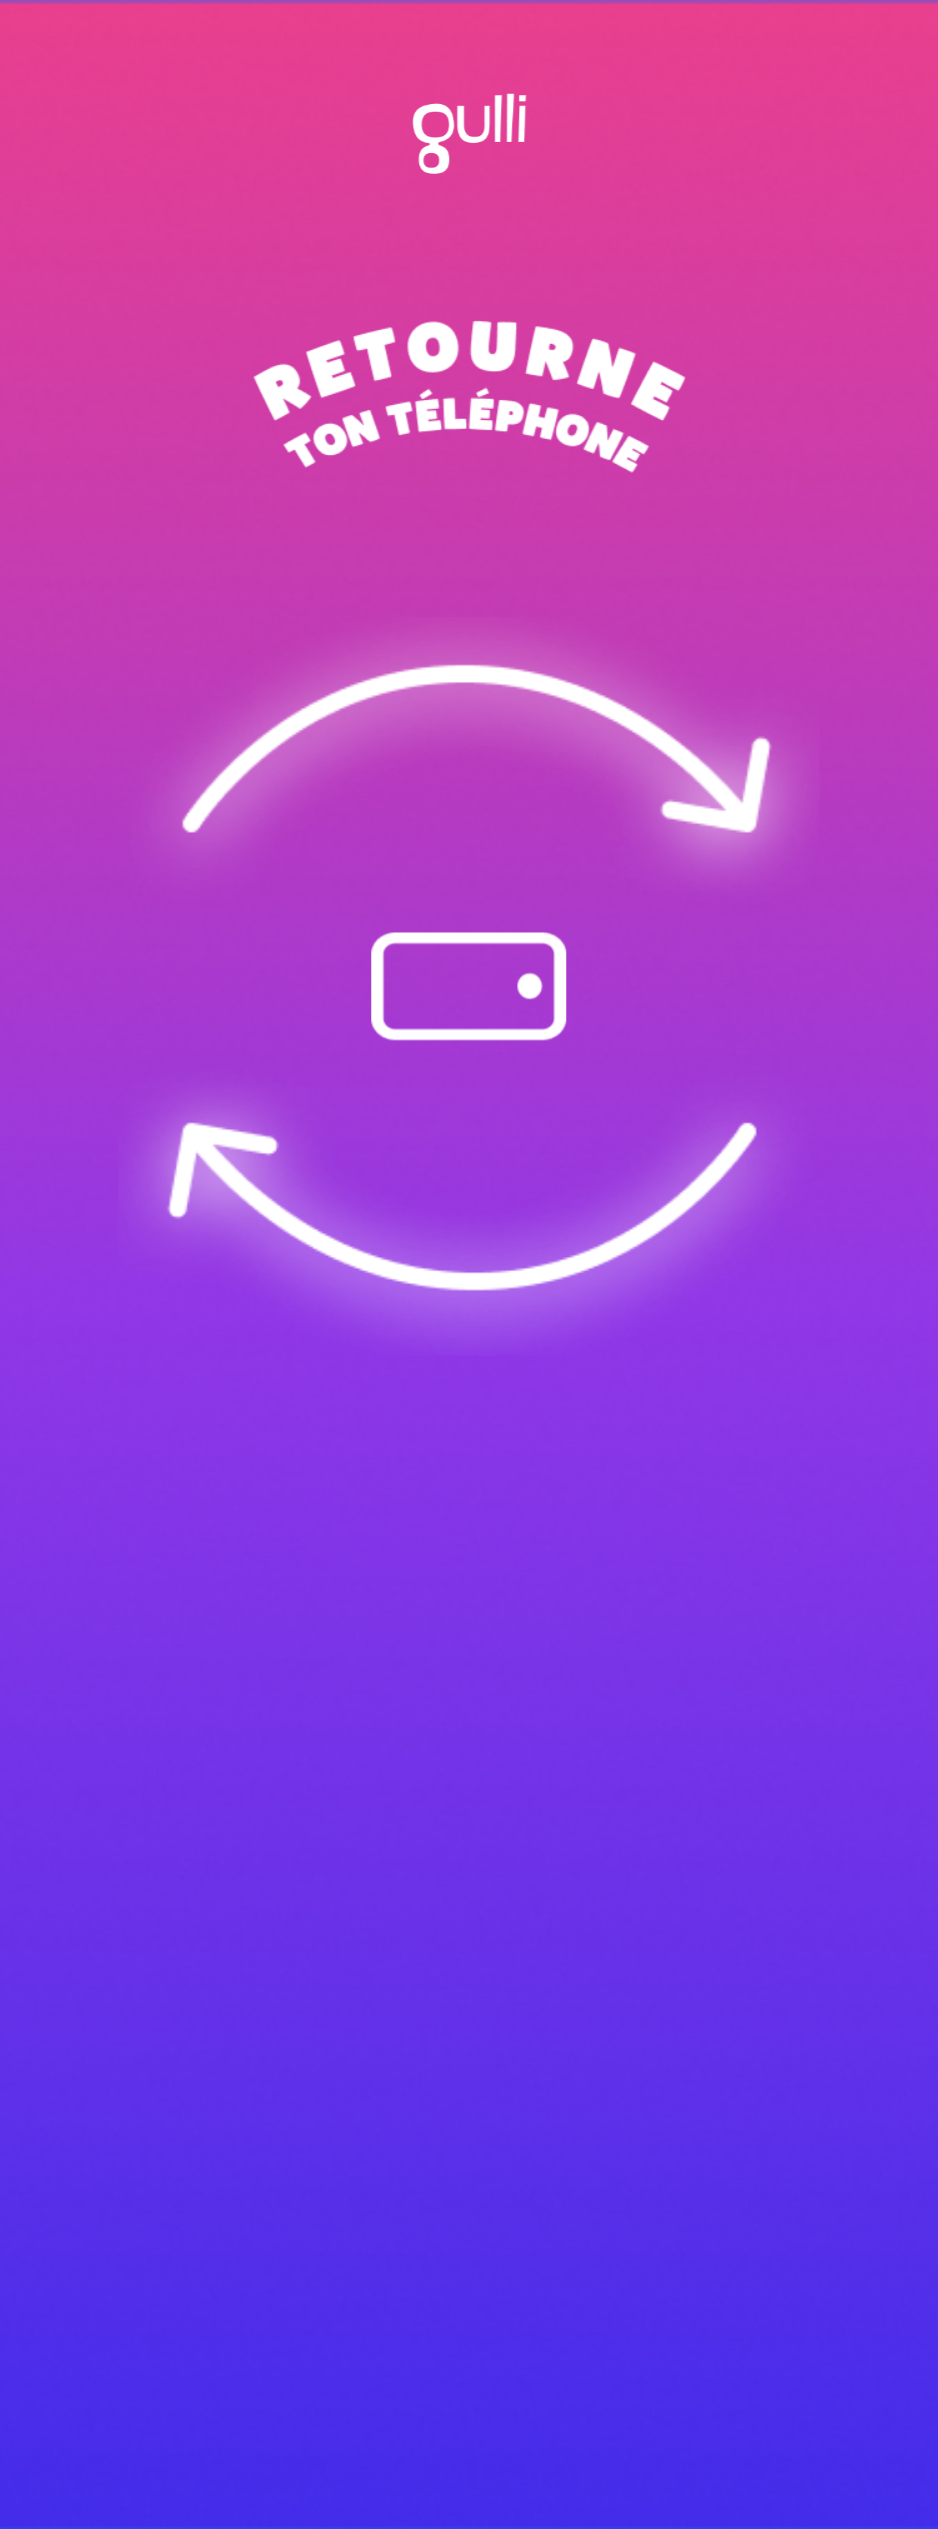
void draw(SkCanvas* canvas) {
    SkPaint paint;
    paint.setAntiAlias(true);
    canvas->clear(0xFF1D62FD);
    canvas->drawImageRect(SkImages::DeferredFromEncodedData(SkData::MakeFromFileName("img1.png")), SkRect::MakeXYWH(0, 0, 938, 2529), SkSamplingOptions());
    canvas->drawImageRect(SkImages::DeferredFromEncodedData(SkData::MakeFromFileName("img2.png")), SkRect::MakeXYWH(412, 93, 115, 81), SkSamplingOptions());
    canvas->drawImageRect(SkImages::DeferredFromEncodedData(SkData::MakeFromFileName("img3.png")), SkRect::MakeXYWH(253, 320, 433, 153), SkSamplingOptions());
    canvas->drawImageRect(SkImages::DeferredFromEncodedData(SkData::MakeFromFileName("img4.png")), SkRect::MakeXYWH(118, 617, 702, 739), SkSamplingOptions());
    canvas->drawImageRect(SkImages::DeferredFromEncodedData(SkData::MakeFromFileName("img5.png")), SkRect::MakeXYWH(371, 932, 196, 109), SkSamplingOptions());
}
